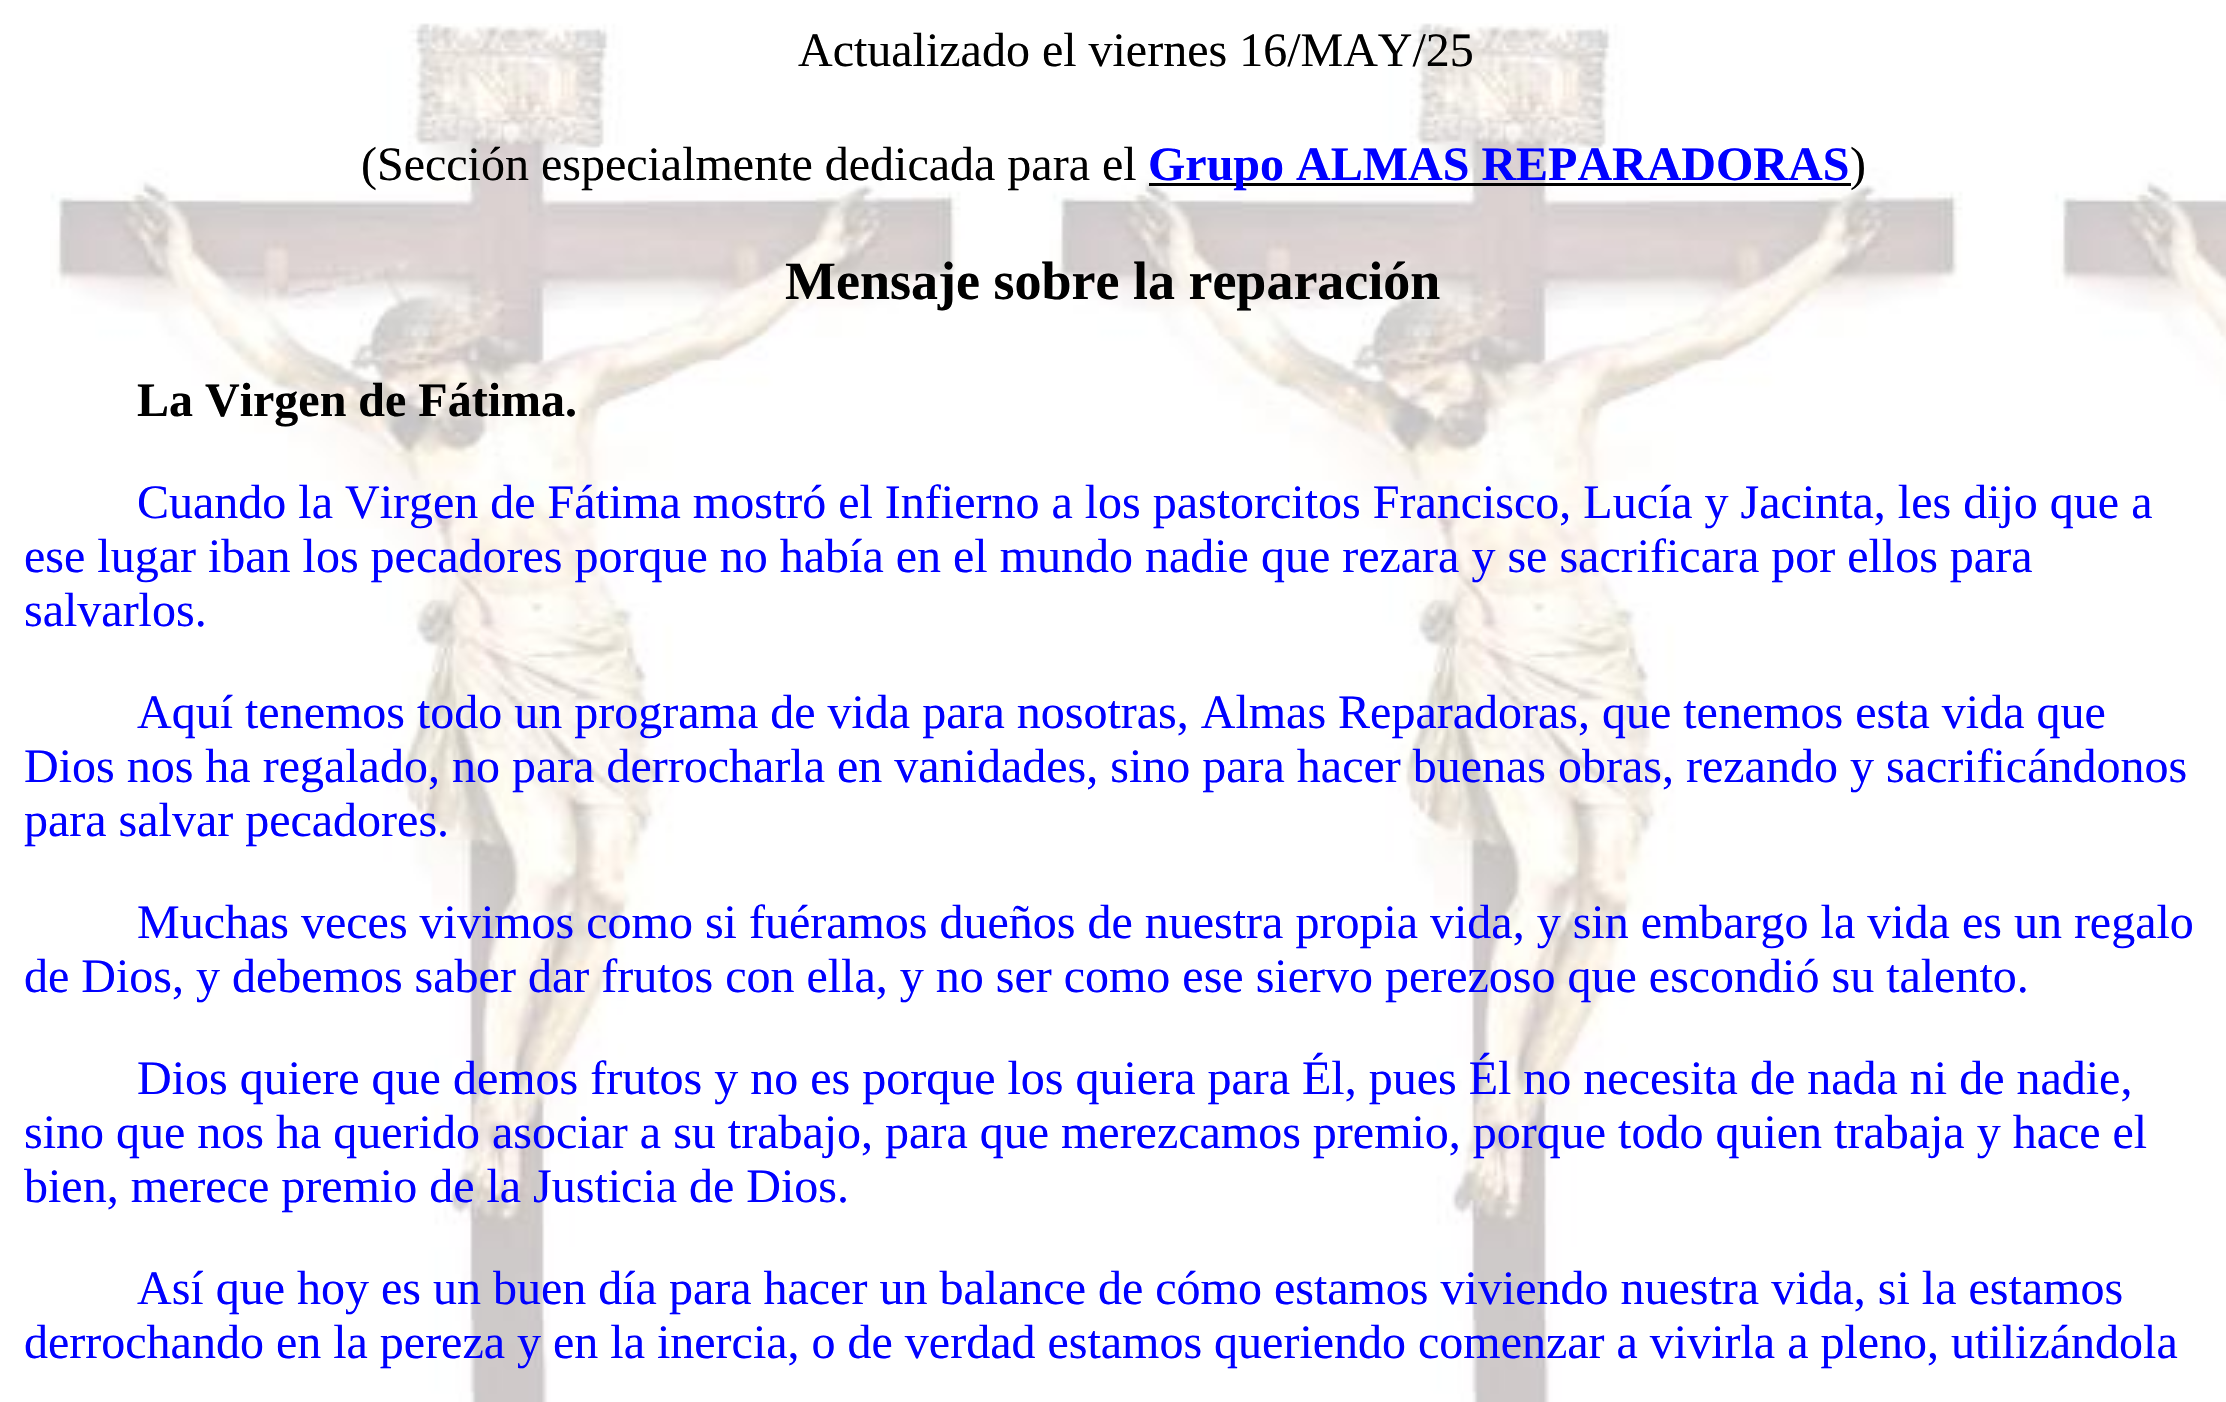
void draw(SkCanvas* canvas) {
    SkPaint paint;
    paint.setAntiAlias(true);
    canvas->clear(0xFFFFFFFF);
    canvas->drawImageRect(SkImages::DeferredFromEncodedData(SkData::MakeFromFileName("img1.png")), SkRect::MakeXYWH(50, 23, 2176, 1379), SkSamplingOptions());
    SkFont font1(fontMgr->matchFamilyStyle("Liberation Serif", SkFontStyle::Normal()), 48);
    font1.setSubpixel(true);
    paint.setColor(0xFF000000);
    canvas->drawString("Actualizado el viernes 16/MAY/25", 798, 66, font1, paint);
    canvas->drawString("(Sección especialmente dedicada para el", 361, 180, font1, paint);
    canvas->drawRect(SkRect::MakeXYWH(1149, 183, 702, 3), paint);
    SkFont font2(fontMgr->matchFamilyStyle("Liberation Serif", SkFontStyle::Bold()), 48);
    font2.setSubpixel(true);
    paint.setColor(0xFF0000FF);
    canvas->drawString("Grupo ALMAS REPARADORAS", 1148, 180, font2, paint);
    paint.setColor(0xFF000000);
    canvas->drawString(")", 1850, 180, font1, paint);
    SkFont font3(fontMgr->matchFamilyStyle("Liberation Serif", SkFontStyle::Bold()), 54);
    font3.setSubpixel(true);
    canvas->drawString("Mensaje sobre la reparación", 785, 299, font3, paint);
    canvas->drawString("La Virgen de Fátima.", 137, 416, font2, paint);
    paint.setColor(0xFF0000FF);
    canvas->drawString("Cuando la Virgen de Fátima mostró el Infierno a los pastorcitos Francisco, Lucía y Jacinta, les dijo que a", 137, 518, font1, paint);
    canvas->drawString("ese lugar iban los pecadores porque no había en el mundo nadie que rezara y se sacrificara por ellos para", 24, 572, font1, paint);
    canvas->drawString("salvarlos.", 24, 626, font1, paint);
    canvas->drawString("Aquí tenemos todo un programa de vida para nosotras, Almas Reparadoras, que tenemos esta vida que", 137, 728, font1, paint);
    canvas->drawString("Dios nos ha regalado, no para derrocharla en vanidades, sino para hacer buenas obras, rezando y sacrificándonos", 24, 782, font1, paint);
    canvas->drawString("para salvar pecadores.", 24, 836, font1, paint);
    canvas->drawString("Muchas veces vivimos como si fuéramos dueños de nuestra propia vida, y sin embargo la vida es un regalo", 137, 938, font1, paint);
    canvas->drawString("de Dios, y debemos saber dar frutos con ella, y no ser como ese siervo perezoso que escondió su talento.", 24, 992, font1, paint);
    canvas->drawString("Dios quiere que demos frutos y no es porque los quiera para Él, pues Él no necesita de nada ni de nadie,", 137, 1094, font1, paint);
    canvas->drawString("sino que nos ha querido asociar a su trabajo, para que merezcamos premio, porque todo quien trabaja y hace el", 24, 1148, font1, paint);
    canvas->drawString("bien, merece premio de la Justicia de Dios.", 24, 1202, font1, paint);
    canvas->drawString("Así que hoy es un buen día para hacer un balance de cómo estamos viviendo nuestra vida, si la estamos", 137, 1304, font1, paint);
    canvas->drawString("derrochando en la pereza y en la inercia, o de verdad estamos queriendo comenzar a vivirla a pleno, utilizándola", 24, 1358, font1, paint);
}
